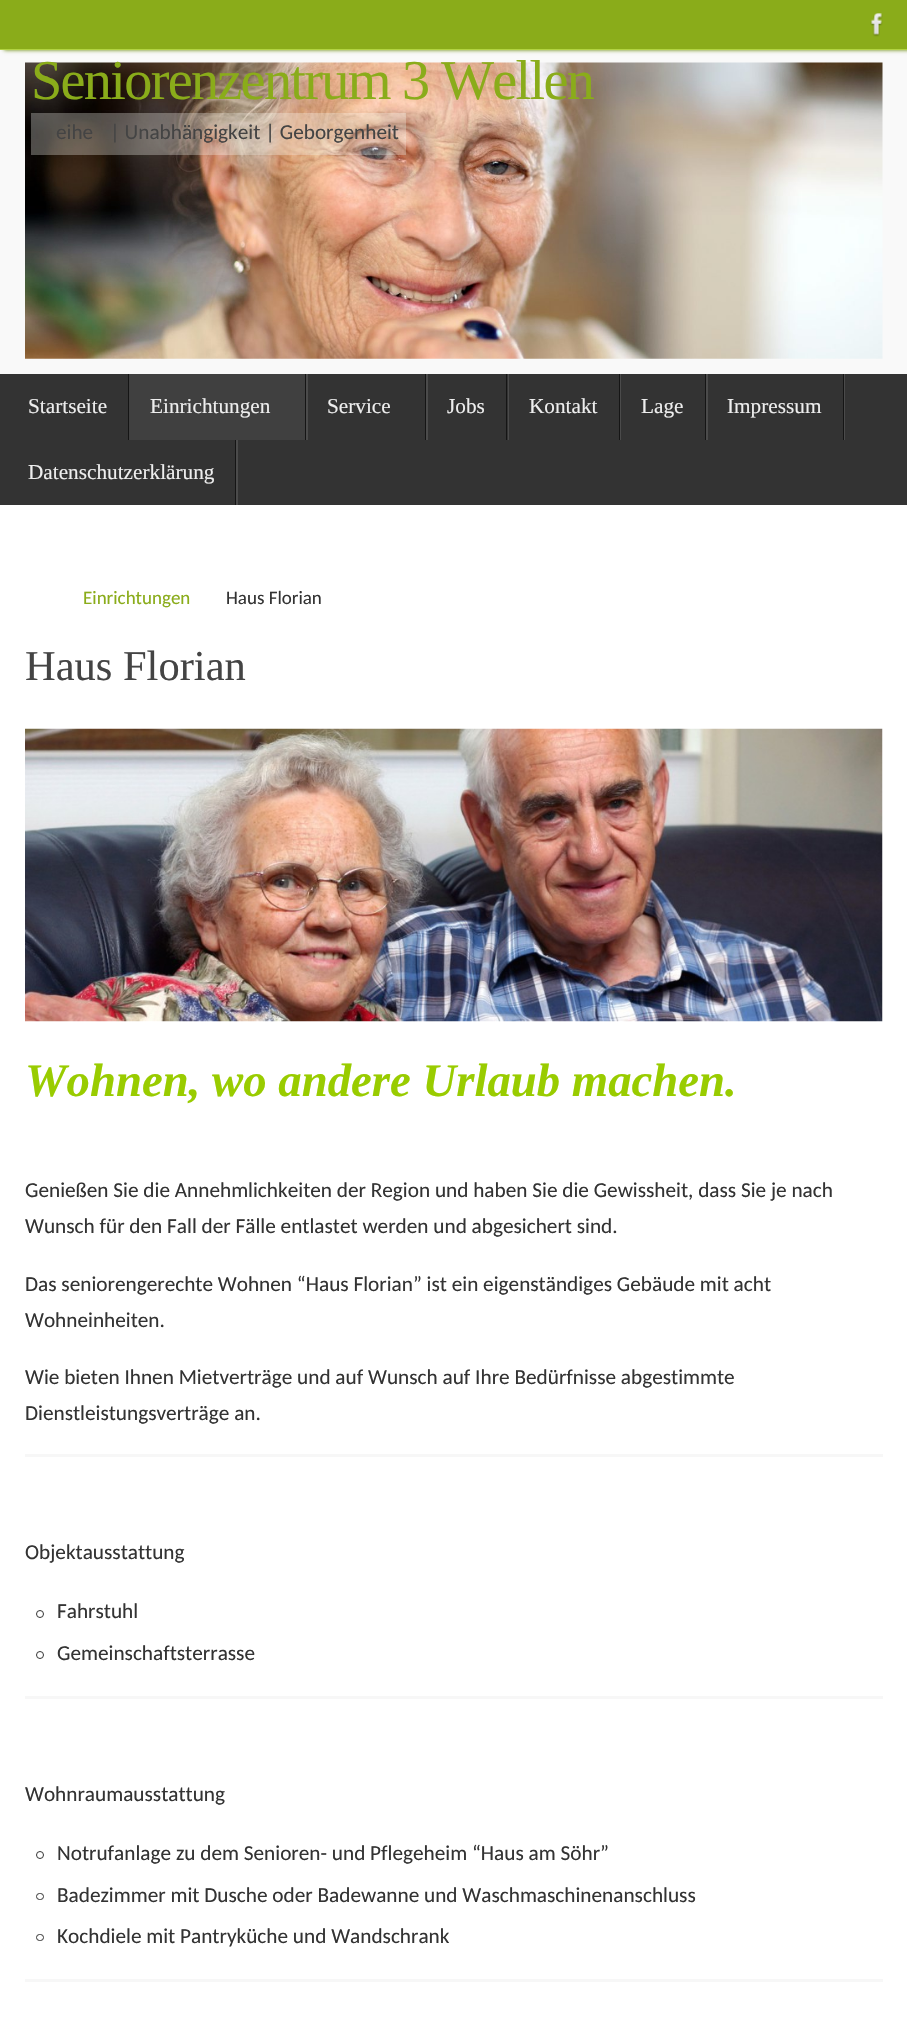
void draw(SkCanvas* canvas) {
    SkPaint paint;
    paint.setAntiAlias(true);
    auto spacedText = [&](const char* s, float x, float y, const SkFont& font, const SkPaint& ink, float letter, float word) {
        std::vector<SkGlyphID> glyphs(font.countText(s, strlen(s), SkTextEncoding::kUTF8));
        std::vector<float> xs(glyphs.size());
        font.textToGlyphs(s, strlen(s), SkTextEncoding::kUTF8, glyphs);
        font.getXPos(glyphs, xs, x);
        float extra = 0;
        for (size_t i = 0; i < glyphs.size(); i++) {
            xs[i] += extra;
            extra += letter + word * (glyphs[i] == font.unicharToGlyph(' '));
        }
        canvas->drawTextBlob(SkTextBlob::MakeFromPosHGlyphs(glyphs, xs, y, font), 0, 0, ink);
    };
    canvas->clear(0xFFF9F9F9);
    paint.setColor(0xFF628400);
    paint.setMaskFilter(SkMaskFilter::MakeBlur(kNormal_SkBlurStyle, 2));
    canvas->drawRect(SkRect::MakeXYWH(4, 0, 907, 50), paint);
    paint.setMaskFilter(nullptr);
    paint.setColor(0xFF8AAC1A);
    canvas->drawRect(SkRect::MakeXYWH(0, 0, 907, 49), paint);
    paint.setColor(0xFFB2D442);
    canvas->drawRect(SkRect::MakeXYWH(0, 49, 907, 1), paint);
    canvas->drawImageRect(SkImages::DeferredFromEncodedData(SkData::MakeFromFileName("img1.png")), SkRect::MakeXYWH(870, 13, 13, 24), SkSamplingOptions());
    canvas->drawImageRect(SkImages::DeferredFromEncodedData(SkData::MakeFromFileName("img2.png")), SkRect::MakeXYWH(25, 62, 858, 297), SkSamplingOptions());
    SkFont font1(fontMgr->matchFamilyStyle("Liberation Serif", SkFontStyle::Normal()), 56.25f);
    font1.setSubpixel(true);
    paint.setColor(0xFF8AAC1A);
    spacedText("Seniorenzentrum 3 Wellen", 31, 99, font1, paint, -1.7f, 0);
    paint.setColor(0x4DF7F7F2);
    canvas->drawRect(SkRect::MakeXYWH(31, 113, 375, 42), paint);
    SkFont font2(fontMgr->matchFamilyStyle("Carlito", SkFontStyle::Normal()), 21.25f);
    font2.setSubpixel(true);
    paint.setColor(0xFF444444);
    canvas->drawString("eihe", 56, 139, font2, paint);
    canvas->drawString("| Unabhängigkeit | Geborgenheit", 110, 139, font2, paint);
    paint.setColor(0xFF333333);
    canvas->drawRect(SkRect::MakeXYWH(0, 374, 907, 131), paint);
    paint.setColor(0xFF151515);
    canvas->drawRect(SkRect::MakeXYWH(128, 374, 1, 66), paint);
    SkFont font3(fontMgr->matchFamilyStyle("Liberation Serif", SkFontStyle::Normal()), 21.25f);
    font3.setSubpixel(true);
    paint.setColor(0xFFEEEEEE);
    canvas->drawString("Startseite", 28, 413, font3, paint);
    paint.setColor(0xFF404040);
    canvas->drawRect(SkRect::MakeXYWH(129, 374, 176, 66), paint);
    paint.setColor(0xFF4B4B4B);
    canvas->drawRect(SkRect::MakeXYWH(306, 374, 2, 66), paint);
    paint.setColor(0xFF151515);
    canvas->drawRect(SkRect::MakeXYWH(305, 374, 1, 66), paint);
    paint.setColor(0xFFEEEEEE);
    canvas->drawString("Einrichtungen", 150, 413, font3, paint);
    paint.setColor(0xFF4B4B4B);
    canvas->drawRect(SkRect::MakeXYWH(426, 374, 2, 66), paint);
    paint.setColor(0xFF151515);
    canvas->drawRect(SkRect::MakeXYWH(425, 374, 1, 66), paint);
    paint.setColor(0xFFEEEEEE);
    canvas->drawString("Service", 327, 413, font3, paint);
    paint.setColor(0xFF4B4B4B);
    canvas->drawRect(SkRect::MakeXYWH(508, 374, 1, 66), paint);
    paint.setColor(0xFF151515);
    canvas->drawRect(SkRect::MakeXYWH(506, 374, 1, 66), paint);
    paint.setColor(0xFFEEEEEE);
    canvas->drawString("Jobs", 447, 413, font3, paint);
    paint.setColor(0xFF4B4B4B);
    canvas->drawRect(SkRect::MakeXYWH(620, 374, 1, 66), paint);
    paint.setColor(0xFF151515);
    canvas->drawRect(SkRect::MakeXYWH(619, 374, 1, 66), paint);
    paint.setColor(0xFFEEEEEE);
    canvas->drawString("Kontakt", 529, 413, font3, paint);
    paint.setColor(0xFF4B4B4B);
    canvas->drawRect(SkRect::MakeXYWH(706, 374, 2, 66), paint);
    paint.setColor(0xFF151515);
    canvas->drawRect(SkRect::MakeXYWH(705, 374, 1, 66), paint);
    paint.setColor(0xFFEEEEEE);
    canvas->drawString("Lage", 641, 413, font3, paint);
    paint.setColor(0xFF4B4B4B);
    canvas->drawRect(SkRect::MakeXYWH(844, 374, 1, 66), paint);
    paint.setColor(0xFF151515);
    canvas->drawRect(SkRect::MakeXYWH(843, 374, 1, 66), paint);
    paint.setColor(0xFFEEEEEE);
    canvas->drawString("Impressum", 727, 413, font3, paint);
    paint.setColor(0xFF4B4B4B);
    canvas->drawRect(SkRect::MakeXYWH(236, 440, 2, 65), paint);
    paint.setColor(0xFF151515);
    canvas->drawRect(SkRect::MakeXYWH(235, 440, 1, 65), paint);
    paint.setColor(0xFFEEEEEE);
    canvas->drawString("Datenschutzerklärung", 28, 479, font3, paint);
    paint.setColor(0xFFFFFFFF);
    canvas->drawRect(SkRect::MakeXYWH(0, 505, 907, 1535), paint);
    SkFont font4(fontMgr->matchFamilyStyle("Carlito", SkFontStyle::Normal()), 19);
    font4.setSubpixel(true);
    paint.setColor(0xFF8AAC1A);
    canvas->drawString("Einrichtungen", 83, 604, font4, paint);
    paint.setColor(0xFF333333);
    canvas->drawString("Haus Florian", 226, 604, font4, paint);
    SkFont font5(fontMgr->matchFamilyStyle("Liberation Serif", SkFontStyle::Normal()), 42.5f);
    font5.setSubpixel(true);
    paint.setColor(0xFF444444);
    canvas->drawString("Haus Florian", 25, 680, font5, paint);
    canvas->drawImageRect(SkImages::DeferredFromEncodedData(SkData::MakeFromFileName("img3.png")), SkRect::MakeXYWH(25, 728, 858, 294), SkSamplingOptions());
    SkFont font6(fontMgr->matchFamilyStyle("Liberation Serif", SkFontStyle::BoldItalic()), 46.75f);
    font6.setSubpixel(true);
    paint.setColor(0xFF99CC00);
    canvas->drawString("Wohnen, wo andere Urlaub machen.", 25, 1096, font6, paint);
    paint.setColor(0xFF333333);
    canvas->drawString("Genießen Sie die Annehmlichkeiten der Region und haben Sie die Gewissheit, dass Sie je nach", 25, 1197, font2, paint);
    canvas->drawString("Wunsch für den Fall der Fälle entlastet werden und abgesichert sind.", 25, 1233, font2, paint);
    canvas->drawString("Das seniorengerechte Wohnen “Haus Florian” ist ein eigenständiges Gebäude mit acht", 25, 1291, font2, paint);
    canvas->drawString("Wohneinheiten.", 25, 1327, font2, paint);
    canvas->drawString("Wie bieten Ihnen Mietverträge und auf Wunsch auf Ihre Bedürfnisse abgestimmte", 25, 1384, font2, paint);
    canvas->drawString("Dienstleistungsverträge an.", 25, 1420, font2, paint);
    paint.setColor(0xFFF7F7F7);
    canvas->drawRect(SkRect::MakeXYWH(25, 1454, 858, 3), paint);
    paint.setColor(0xFF333333);
    canvas->drawString("Objektausstattung", 25, 1559, font2, paint);
    paint.setStyle(SkPaint::kStroke_Style);
    paint.setStrokeWidth(1);
    canvas->drawCircle(40, 1614, 3.5f, paint);
    paint.setStyle(SkPaint::kFill_Style);
    canvas->drawString("Fahrstuhl", 57, 1618, font2, paint);
    paint.setStyle(SkPaint::kStroke_Style);
    canvas->drawCircle(40, 1655, 3.5f, paint);
    paint.setStyle(SkPaint::kFill_Style);
    canvas->drawString("Gemeinschaftsterrasse", 57, 1660, font2, paint);
    paint.setColor(0xFFF7F7F7);
    canvas->drawRect(SkRect::MakeXYWH(25, 1696, 858, 3), paint);
    paint.setColor(0xFF333333);
    canvas->drawString("Wohnraumausstattung", 25, 1801, font2, paint);
    paint.setStyle(SkPaint::kStroke_Style);
    canvas->drawCircle(40, 1855, 3.5f, paint);
    paint.setStyle(SkPaint::kFill_Style);
    canvas->drawString("Notrufanlage zu dem Senioren- und Pflegeheim “Haus am Söhr”", 57, 1860, font2, paint);
    paint.setStyle(SkPaint::kStroke_Style);
    canvas->drawRoundRect(SkRect::MakeXYWH(36.5f, 1893.5f, 7, 6), 3, 3, paint);
    paint.setStyle(SkPaint::kFill_Style);
    canvas->drawString("Badezimmer mit Dusche oder Badewanne und Waschmaschinenanschluss", 57, 1902, font2, paint);
    paint.setStyle(SkPaint::kStroke_Style);
    canvas->drawRoundRect(SkRect::MakeXYWH(36.5f, 1934.5f, 7, 6), 3, 3, paint);
    paint.setStyle(SkPaint::kFill_Style);
    canvas->drawString("Kochdiele mit Pantryküche und Wandschrank", 57, 1943, font2, paint);
    paint.setColor(0xFFF7F7F7);
    canvas->drawRect(SkRect::MakeXYWH(25, 1979, 858, 3), paint);
}
